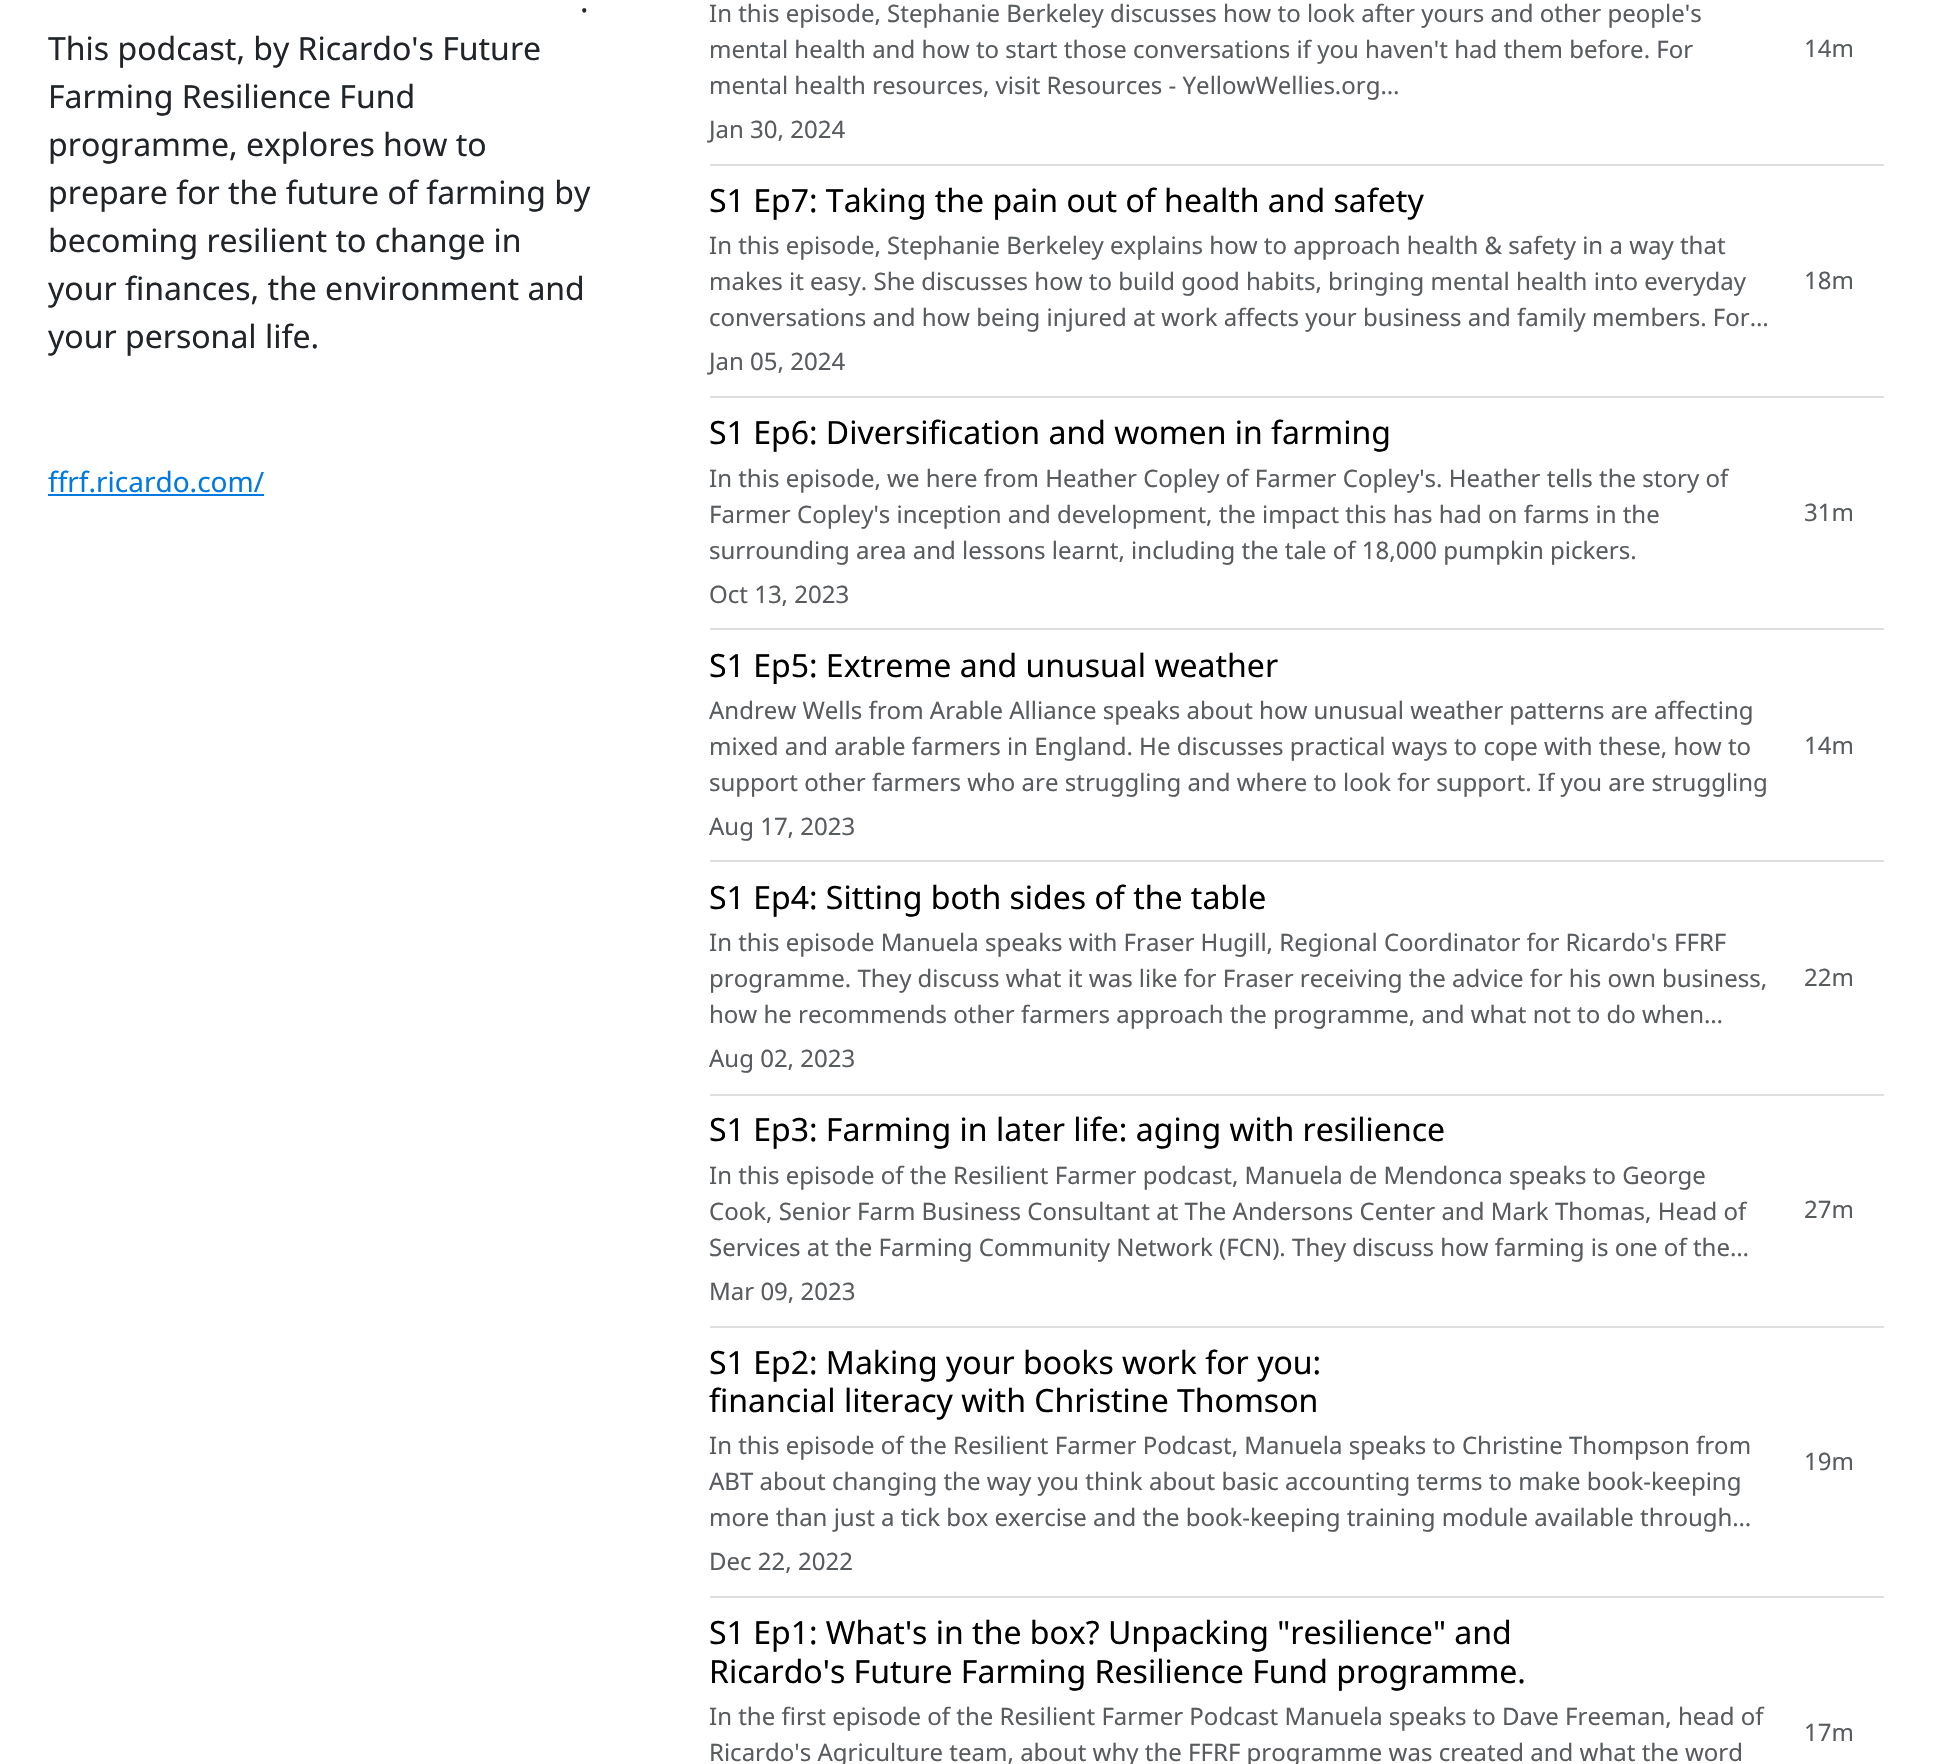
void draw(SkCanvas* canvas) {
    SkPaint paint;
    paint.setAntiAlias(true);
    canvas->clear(0xFFFFFFFF);
    SkFont font1(fontMgr->matchFamilyStyle("Noto Sans", SkFontStyle::Normal()), 32);
    font1.setSubpixel(true);
    paint.setColor(0xFF212529);
    canvas->drawString(".", 580, 12, font1, paint);
    canvas->drawString("This podcast, by Ricardo's Future", 48, 60, font1, paint);
    canvas->drawString("Farming Resilience Fund", 48, 108, font1, paint);
    canvas->drawString("programme, explores how to", 48, 156, font1, paint);
    canvas->drawString("prepare for the future of farming by", 48, 204, font1, paint);
    canvas->drawString("becoming resilient to change in", 48, 252, font1, paint);
    canvas->drawString("your finances, the environment and", 48, 300, font1, paint);
    canvas->drawString("your personal life.", 48, 348, font1, paint);
    SkFont font2(fontMgr->matchFamilyStyle("Noto Sans", SkFontStyle::Normal()), 28);
    font2.setSubpixel(true);
    paint.setColor(0xFF007AE0);
    canvas->drawString("ffrf.ricardo.com/", 48, 492, font2, paint);
    canvas->drawRect(SkRect::MakeXYWH(48, 494, 216, 2), paint);
    SkFont font3(fontMgr->matchFamilyStyle("Noto Sans", SkFontStyle::Normal()), 24);
    font3.setSubpixel(true);
    paint.setColor(0xFF595C5F);
    canvas->drawString("In this episode, Stephanie Berkeley discusses how to look after yours and other people's", 709, 22, font3, paint);
    canvas->drawString("mental health and how to start those conversations if you haven't had them before. For", 709, 58, font3, paint);
    canvas->drawString("mental health resources, visit Resources - YellowWellies.org…", 709, 94, font3, paint);
    canvas->drawString("Jan 30, 2024", 709, 138, font3, paint);
    canvas->drawString("14m", 1804, 57, font3, paint);
    paint.setColor(0xFFDFDFDF);
    canvas->drawRect(SkRect::MakeXYWH(710, 164, 1174, 2), paint);
    paint.setColor(0xFF000000);
    canvas->drawString("S1 Ep7: Taking the pain out of health and safety", 709, 212, font1, paint);
    paint.setColor(0xFF595C5F);
    canvas->drawString("In this episode, Stephanie Berkeley explains how to approach health & safety in a way that", 709, 254, font3, paint);
    canvas->drawString("makes it easy. She discusses how to build good habits, bringing mental health into everyday", 709, 290, font3, paint);
    canvas->drawString("conversations and how being injured at work affects your business and family members. For…", 709, 326, font3, paint);
    canvas->drawString("Jan 05, 2024", 709, 370, font3, paint);
    canvas->drawString("18m", 1804, 289, font3, paint);
    paint.setColor(0xFFDFDFDF);
    canvas->drawRect(SkRect::MakeXYWH(710, 396, 1174, 2), paint);
    paint.setColor(0xFF000000);
    canvas->drawString("S1 Ep6: Diversification and women in farming", 709, 444, font1, paint);
    paint.setColor(0xFF595C5F);
    canvas->drawString("In this episode, we here from Heather Copley of Farmer Copley's. Heather tells the story of", 709, 487, font3, paint);
    canvas->drawString("Farmer Copley's inception and development, the impact this has had on farms in the", 709, 523, font3, paint);
    canvas->drawString("surrounding area and lessons learnt, including the tale of 18,000 pumpkin pickers.", 709, 559, font3, paint);
    canvas->drawString("Oct 13, 2023", 709, 603, font3, paint);
    canvas->drawString("31m", 1804, 521, font3, paint);
    paint.setColor(0xFFDFDFDF);
    canvas->drawRect(SkRect::MakeXYWH(710, 628, 1174, 2), paint);
    canvas->save();
    canvas->clipRect(SkRect::MakeXYWH(710, 646, 1064, 38));
    paint.setColor(0xFF000000);
    canvas->drawString("S1 Ep5: Extreme and unusual weather", 709, 677, font1, paint);
    canvas->restore();
    paint.setColor(0xFF595C5F);
    canvas->drawString("Andrew Wells from Arable Alliance speaks about how unusual weather patterns are affecting", 709, 719, font3, paint);
    canvas->drawString("mixed and arable farmers in England. He discusses practical ways to cope with these, how to", 709, 755, font3, paint);
    canvas->drawString("support other farmers who are struggling and where to look for support. If you are struggling", 709, 791, font3, paint);
    canvas->drawString("Aug 17, 2023", 709, 835, font3, paint);
    canvas->drawString("14m", 1804, 754, font3, paint);
    paint.setColor(0xFFDFDFDF);
    canvas->drawRect(SkRect::MakeXYWH(710, 860, 1174, 2), paint);
    paint.setColor(0xFF000000);
    canvas->drawString("S1 Ep4: Sitting both sides of the table", 709, 909, font1, paint);
    paint.setColor(0xFF595C5F);
    canvas->drawString("In this episode Manuela speaks with Fraser Hugill, Regional Coordinator for Ricardo's FFRF", 709, 951, font3, paint);
    canvas->drawString("programme. They discuss what it was like for Fraser receiving the advice for his own business,", 709, 987, font3, paint);
    canvas->drawString("how he recommends other farmers approach the programme, and what not to do when…", 709, 1023, font3, paint);
    canvas->drawString("Aug 02, 2023", 709, 1067, font3, paint);
    canvas->drawString("22m", 1804, 986, font3, paint);
    paint.setColor(0xFFDFDFDF);
    canvas->drawRect(SkRect::MakeXYWH(710, 1094, 1174, 2), paint);
    paint.setColor(0xFF000000);
    canvas->drawString("S1 Ep3: Farming in later life: aging with resilience", 709, 1141, font1, paint);
    paint.setColor(0xFF595C5F);
    canvas->drawString("In this episode of the Resilient Farmer podcast, Manuela de Mendonca speaks to George", 709, 1184, font3, paint);
    canvas->drawString("Cook, Senior Farm Business Consultant at The Andersons Center and Mark Thomas, Head of", 709, 1220, font3, paint);
    canvas->drawString("Services at the Farming Community Network (FCN). They discuss how farming is one of the…", 709, 1256, font3, paint);
    canvas->drawString("Mar 09, 2023", 709, 1300, font3, paint);
    canvas->drawString("27m", 1804, 1218, font3, paint);
    paint.setColor(0xFFDFDFDF);
    canvas->drawRect(SkRect::MakeXYWH(710, 1326, 1174, 2), paint);
    paint.setColor(0xFF000000);
    canvas->drawString("S1 Ep2: Making your books work for you:", 709, 1374, font1, paint);
    canvas->drawString("financial literacy with Christine Thomson", 709, 1412, font1, paint);
    paint.setColor(0xFF595C5F);
    canvas->drawString("In this episode of the Resilient Farmer Podcast, Manuela speaks to Christine Thompson from", 709, 1454, font3, paint);
    canvas->drawString("ABT about changing the way you think about basic accounting terms to make book-keeping", 709, 1490, font3, paint);
    canvas->drawString("more than just a tick box exercise and the book-keeping training module available through…", 709, 1526, font3, paint);
    canvas->drawString("Dec 22, 2022", 709, 1570, font3, paint);
    canvas->drawString("19m", 1804, 1470, font3, paint);
    paint.setColor(0xFFDFDFDF);
    canvas->drawRect(SkRect::MakeXYWH(710, 1596, 1174, 2), paint);
    paint.setColor(0xFF000000);
    canvas->drawString("S1 Ep1: What's in the box? Unpacking \"resilience\" and", 709, 1644, font1, paint);
    canvas->drawString("Ricardo's Future Farming Resilience Fund programme.", 709, 1683, font1, paint);
    paint.setColor(0xFF595C5F);
    canvas->drawString("In the first episode of the Resilient Farmer Podcast Manuela speaks to Dave Freeman, head of", 709, 1725, font3, paint);
    canvas->drawString("Ricardo's Agriculture team, about why the FFRF programme was created and what the word", 709, 1761, font3, paint);
    canvas->drawString("17m", 1804, 1741, font3, paint);
}
